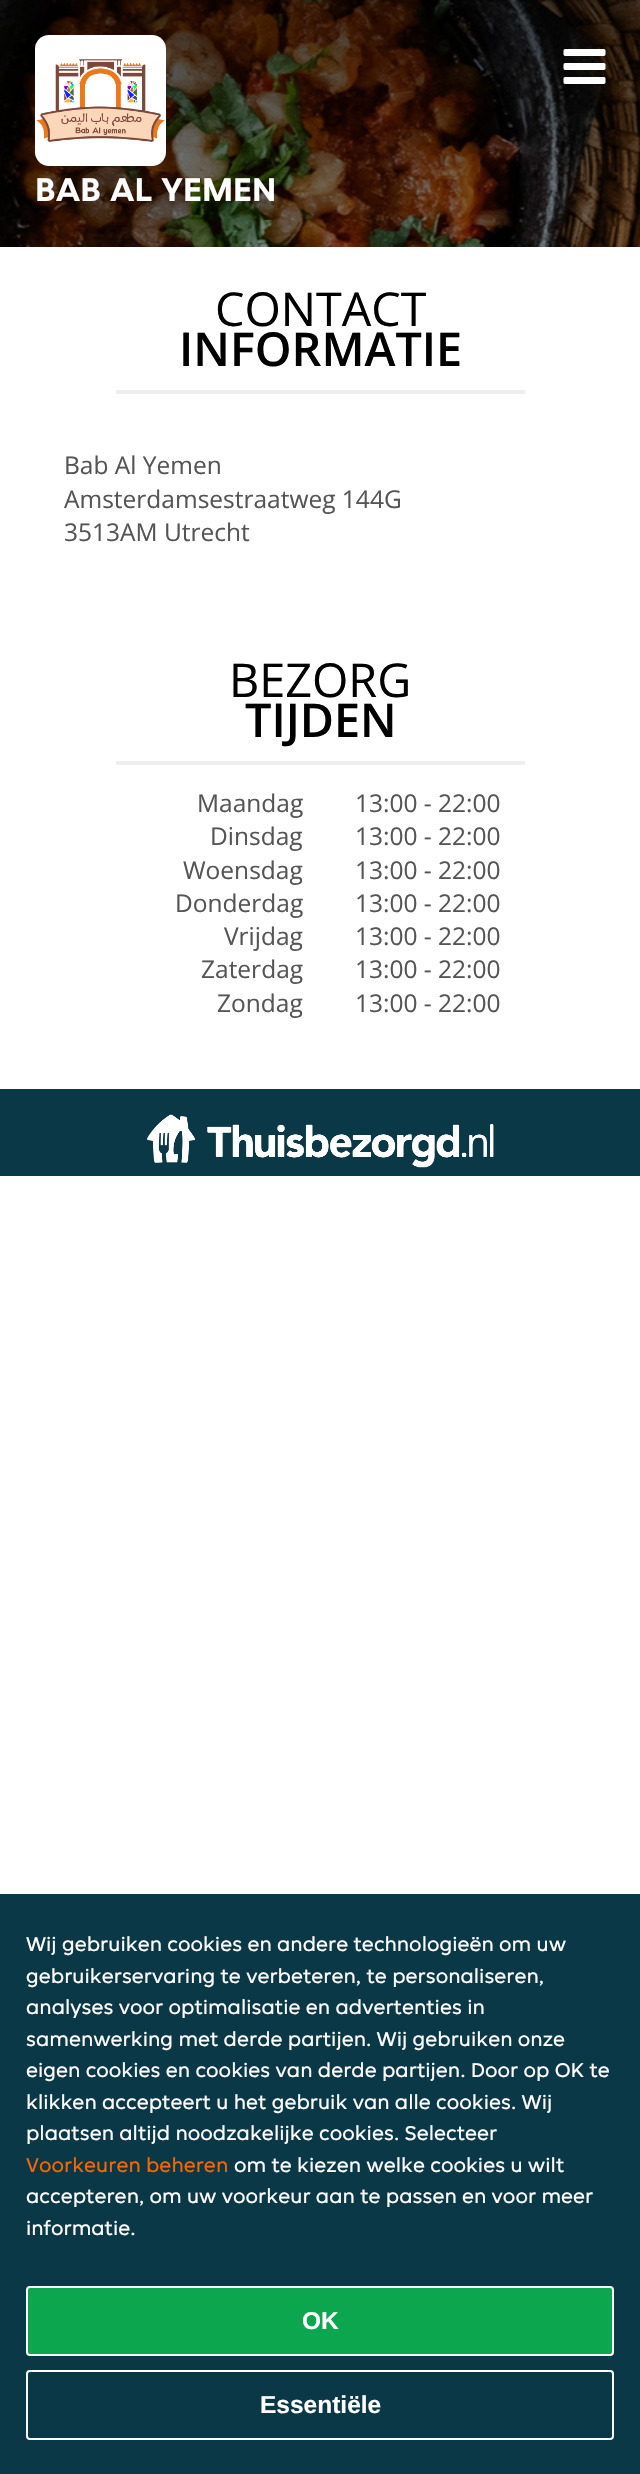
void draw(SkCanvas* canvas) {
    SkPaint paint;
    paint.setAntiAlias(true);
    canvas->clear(0xFFFFFFFF);
    canvas->drawImageRect(SkImages::DeferredFromEncodedData(SkData::MakeFromFileName("img1.png")), SkRect::MakeXYWH(0, 0, 640, 247), SkSamplingOptions());
    {
        const SkColor colors[] = {0xB3000000, 0x66000000, 0x33000000, 0x00000000};
        const float stops[] = {0, 0.33f, 0.67f, 1};
        const SkPoint ends[] = {{320, 0}, {320, 875}};
        paint.setShader(SkGradientShader::MakeLinear(ends, colors, stops, 4, SkTileMode::kClamp));
        paint.setAlpha(255);
    }
    canvas->drawRect(SkRect::MakeXYWH(0, 0, 640, 247), paint);
    canvas->drawImageRect(SkImages::DeferredFromEncodedData(SkData::MakeFromFileName("img2.png")), SkRect::MakeXYWH(563, 49, 43, 35), SkSamplingOptions());
    paint.setShader(nullptr);
    paint.setColor(0xFFFFFFFF);
    canvas->drawRoundRect(SkRect::MakeXYWH(35, 35, 131, 131), 14, 14, paint);
    canvas->drawImageRect(SkImages::DeferredFromEncodedData(SkData::MakeFromFileName("img3.png")), SkRect::MakeXYWH(36, 59, 129, 83), SkSamplingOptions());
    SkFont font1(fontMgr->matchFamilyStyle("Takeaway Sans", SkFontStyle::Bold()), 35);
    font1.setSubpixel(true);
    canvas->drawString("BAB AL YEMEN", 35, 201, font1, paint);
    SkFont font2(fontMgr->matchFamilyStyle("Open Sans", SkFontStyle::Normal()), 46.75f);
    font2.setSubpixel(true);
    paint.setColor(0xFF000000);
    canvas->drawString("CONTACT", 215, 326, font2, paint);
    SkFont font3(fontMgr->matchFamilyStyle("Open Sans", SkFontStyle(600, SkFontStyle::kNormal_Width, SkFontStyle::kUpright_Slant)), 46.75f);
    font3.setSubpixel(true);
    canvas->drawString("INFORMATIE", 179, 366, font3, paint);
    paint.setColor(0xFFEEEEEE);
    canvas->drawRect(SkRect::MakeXYWH(116, 390, 409, 4), paint);
    SkFont font4(fontMgr->matchFamilyStyle("Open Sans", SkFontStyle::Normal()), 24.5f);
    font4.setSubpixel(true);
    paint.setColor(0xFF555555);
    canvas->drawString("Bab Al Yemen", 64, 474, font4, paint);
    canvas->drawString("Amsterdamsestraatweg 144G", 64, 508, font4, paint);
    canvas->drawString("3513AM Utrecht", 64, 541, font4, paint);
    paint.setColor(0xFF000000);
    canvas->drawString("BEZORG", 229, 697, font2, paint);
    canvas->drawString("TIJDEN", 245, 737, font3, paint);
    paint.setColor(0xFFEEEEEE);
    canvas->drawRect(SkRect::MakeXYWH(116, 761, 409, 4), paint);
    paint.setColor(0xFF555555);
    canvas->drawString("Maandag", 197, 812, font4, paint);
    canvas->drawString("13:00 - 22:00", 355, 812, font4, paint);
    canvas->drawString("Dinsdag", 210, 845, font4, paint);
    canvas->drawString("13:00 - 22:00", 355, 845, font4, paint);
    canvas->drawString("Woensdag", 183, 879, font4, paint);
    canvas->drawString("13:00 - 22:00", 355, 879, font4, paint);
    canvas->drawString("Donderdag", 175, 912, font4, paint);
    canvas->drawString("13:00 - 22:00", 355, 912, font4, paint);
    canvas->drawString("Vrijdag", 224, 945, font4, paint);
    canvas->drawString("13:00 - 22:00", 355, 945, font4, paint);
    canvas->drawString("Zaterdag", 201, 978, font4, paint);
    canvas->drawString("13:00 - 22:00", 355, 978, font4, paint);
    canvas->drawString("Zondag", 217, 1012, font4, paint);
    canvas->drawString("13:00 - 22:00", 355, 1012, font4, paint);
    paint.setColor(0xFF0A3847);
    canvas->drawRect(SkRect::MakeXYWH(0, 1089, 640, 87), paint);
    canvas->drawImageRect(SkImages::DeferredFromEncodedData(SkData::MakeFromFileName("img4.png")), SkRect::MakeXYWH(147, 1114, 347, 54), SkSamplingOptions());
    canvas->drawRect(SkRect::MakeXYWH(0, 1894, 640, 580), paint);
    SkFont font5(fontMgr->matchFamilyStyle("Takeaway Sans", SkFontStyle::Normal()), 21);
    font5.setSubpixel(true);
    paint.setColor(0xFFFFFFFF);
    canvas->drawString("Wij gebruiken cookies en andere technologieën om uw", 26, 1951, font5, paint);
    canvas->drawString("gebruikerservaring te verbeteren, te personaliseren,", 26, 1983, font5, paint);
    canvas->drawString("analyses voor optimalisatie en advertenties in", 26, 2014, font5, paint);
    canvas->drawString("samenwerking met derde partijen. Wij gebruiken onze", 26, 2046, font5, paint);
    canvas->drawString("eigen cookies en cookies van derde partijen. Door op OK te", 26, 2077, font5, paint);
    canvas->drawString("klikken accepteert u het gebruik van alle cookies. Wij", 26, 2109, font5, paint);
    canvas->drawString("plaatsen altijd noodzakelijke cookies. Selecteer", 26, 2140, font5, paint);
    paint.setColor(0xFFF86600);
    canvas->drawString("Voorkeuren beheren", 26, 2172, font5, paint);
    paint.setColor(0xFFFFFFFF);
    canvas->drawString("om te kiezen welke cookies u wilt", 234, 2172, font5, paint);
    canvas->drawString("accepteren, om uw voorkeur aan te passen en voor meer", 26, 2203, font5, paint);
    canvas->drawString("informatie.", 26, 2235, font5, paint);
    paint.setColor(0xFF0CA64F);
    canvas->drawRoundRect(SkRect::MakeXYWH(27, 2287, 586, 68), 3, 3, paint);
    paint.setStyle(SkPaint::kStroke_Style);
    paint.setStrokeWidth(2);
    paint.setColor(0xFFFFFFFF);
    canvas->drawRoundRect(SkRect::MakeXYWH(27, 2287, 586, 68), 3, 3, paint);
    SkFont font6(fontMgr->matchFamilyStyle("Liberation Sans", SkFontStyle::Bold()), 24.5f);
    font6.setSubpixel(true);
    paint.setStyle(SkPaint::kFill_Style);
    canvas->drawString("OK", 302, 2329, font6, paint);
    paint.setStyle(SkPaint::kStroke_Style);
    canvas->drawRoundRect(SkRect::MakeXYWH(27, 2371, 586, 68), 3, 3, paint);
    paint.setStyle(SkPaint::kFill_Style);
    canvas->drawString("Essentiële", 260, 2413, font6, paint);
}
